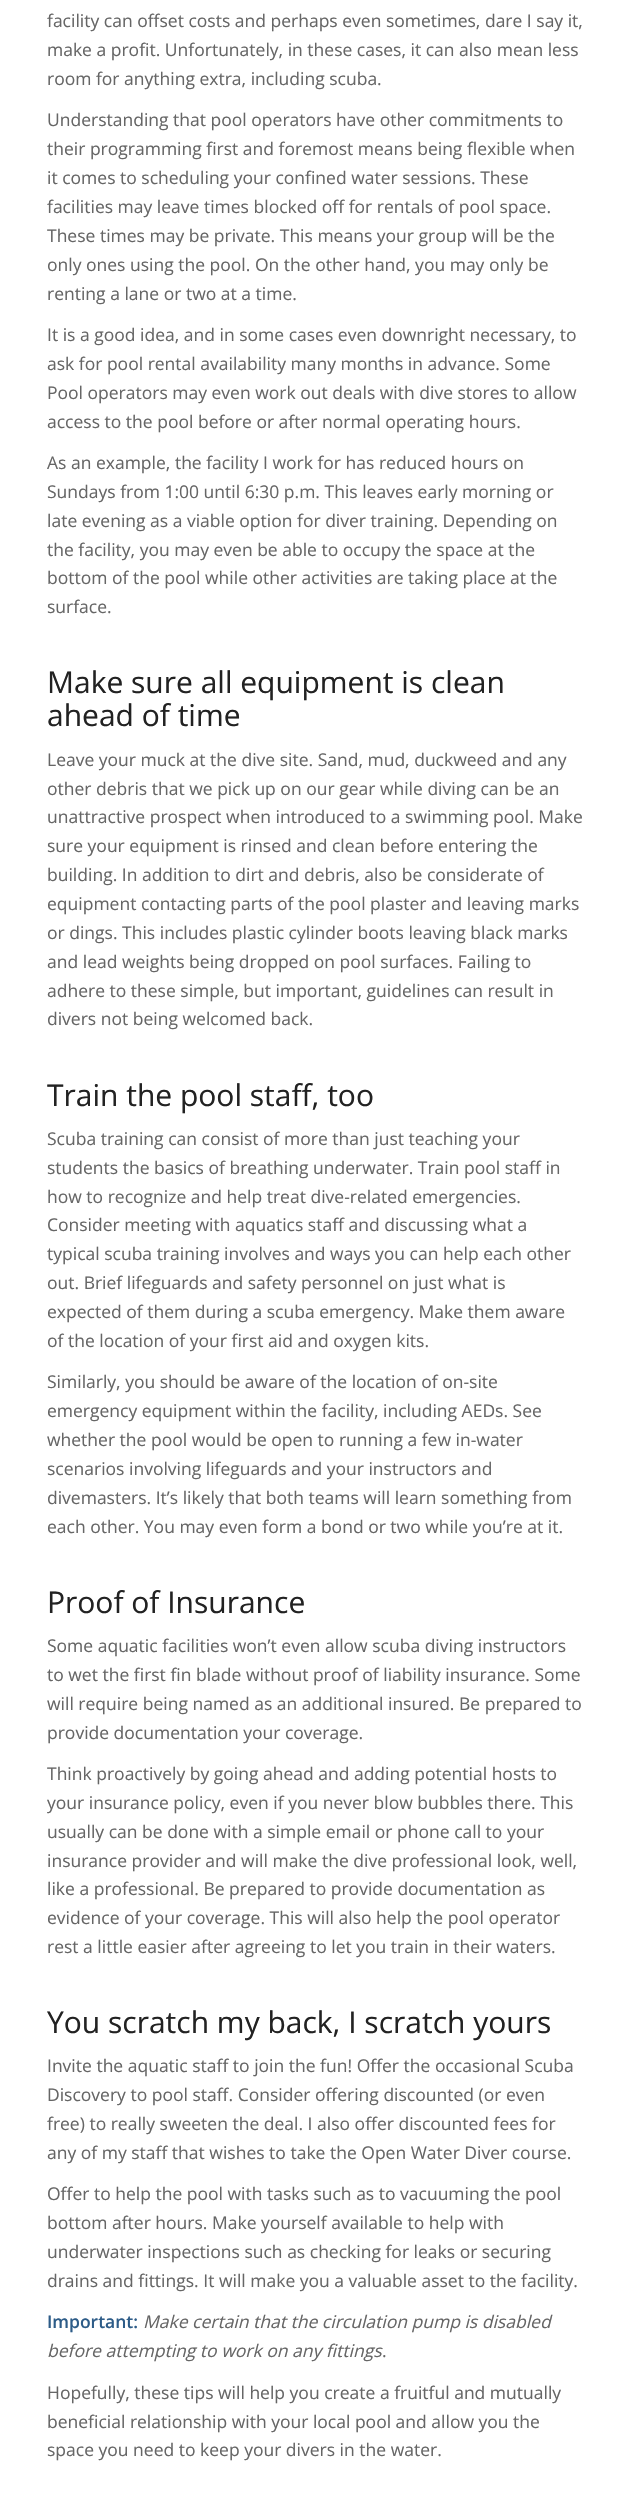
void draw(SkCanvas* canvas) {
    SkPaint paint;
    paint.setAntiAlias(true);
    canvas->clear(0xFFFFFFFF);
    SkFont font1(fontMgr->matchFamilyStyle("Open Sans", SkFontStyle::Normal()), 17.5f);
    font1.setSubpixel(true);
    paint.setColor(0xFF666666);
    canvas->drawString("facility can offset costs and perhaps even sometimes, dare I say it,", 47, 27, font1, paint);
    canvas->drawString("make a profit. Unfortunately, in these cases, it can also mean less", 47, 56, font1, paint);
    canvas->drawString("room for anything extra, including scuba.", 47, 85, font1, paint);
    canvas->drawString("Understanding that pool operators have other commitments to", 47, 126, font1, paint);
    canvas->drawString("their programming first and foremost means being flexible when", 47, 155, font1, paint);
    canvas->drawString("it comes to scheduling your confined water sessions. These", 47, 184, font1, paint);
    canvas->drawString("facilities may leave times blocked off for rentals of pool space.", 47, 213, font1, paint);
    canvas->drawString("These times may be private. This means your group will be the", 47, 242, font1, paint);
    canvas->drawString("only ones using the pool. On the other hand, you may only be", 47, 271, font1, paint);
    canvas->drawString("renting a lane or two at a time.", 47, 300, font1, paint);
    canvas->drawString("It is a good idea, and in some cases even downright necessary, to", 47, 341, font1, paint);
    canvas->drawString("ask for pool rental availability many months in advance. Some", 47, 370, font1, paint);
    canvas->drawString("Pool operators may even work out deals with dive stores to allow", 47, 399, font1, paint);
    canvas->drawString("access to the pool before or after normal operating hours.", 47, 428, font1, paint);
    canvas->drawString("As an example, the facility I work for has reduced hours on", 47, 469, font1, paint);
    canvas->drawString("Sundays from 1:00 until 6:30 p.m. This leaves early morning or", 47, 498, font1, paint);
    canvas->drawString("late evening as a viable option for diver training. Depending on", 47, 527, font1, paint);
    canvas->drawString("the facility, you may even be able to occupy the space at the", 47, 556, font1, paint);
    canvas->drawString("bottom of the pool while other activities are taking place at the", 47, 584, font1, paint);
    canvas->drawString("surface.", 47, 613, font1, paint);
    SkFont font2(fontMgr->matchFamilyStyle("Open Sans", SkFontStyle::Normal()), 30);
    font2.setSubpixel(true);
    paint.setColor(0xFF222222);
    canvas->drawString("Make sure all equipment is clean", 47, 693, font2, paint);
    canvas->drawString("ahead of time", 47, 726, font2, paint);
    paint.setColor(0xFF666666);
    canvas->drawString("Leave your muck at the dive site. Sand, mud, duckweed and any", 47, 766, font1, paint);
    canvas->drawString("other debris that we pick up on our gear while diving can be an", 47, 795, font1, paint);
    canvas->drawString("unattractive prospect when introduced to a swimming pool. Make", 47, 823, font1, paint);
    canvas->drawString("sure your equipment is rinsed and clean before entering the", 47, 852, font1, paint);
    canvas->drawString("building. In addition to dirt and debris, also be considerate of", 47, 881, font1, paint);
    canvas->drawString("equipment contacting parts of the pool plaster and leaving marks", 47, 910, font1, paint);
    canvas->drawString("or dings. This includes plastic cylinder boots leaving black marks", 47, 939, font1, paint);
    canvas->drawString("and lead weights being dropped on pool surfaces. Failing to", 47, 968, font1, paint);
    canvas->drawString("adhere to these simple, but important, guidelines can result in", 47, 997, font1, paint);
    canvas->drawString("divers not being welcomed back.", 47, 1025, font1, paint);
    paint.setColor(0xFF222222);
    canvas->drawString("Train the pool staff, too", 47, 1106, font2, paint);
    paint.setColor(0xFF666666);
    canvas->drawString("Scuba training can consist of more than just teaching your", 47, 1145, font1, paint);
    canvas->drawString("students the basics of breathing underwater. Train pool staff in", 47, 1174, font1, paint);
    canvas->drawString("how to recognize and help treat dive-related emergencies.", 47, 1203, font1, paint);
    canvas->drawString("Consider meeting with aquatics staff and discussing what a", 47, 1231, font1, paint);
    canvas->drawString("typical scuba training involves and ways you can help each other", 47, 1260, font1, paint);
    canvas->drawString("out. Brief lifeguards and safety personnel on just what is", 47, 1289, font1, paint);
    canvas->drawString("expected of them during a scuba emergency. Make them aware", 47, 1318, font1, paint);
    canvas->drawString("of the location of your first aid and oxygen kits.", 47, 1347, font1, paint);
    canvas->drawString("Similarly, you should be aware of the location of on-site", 47, 1388, font1, paint);
    canvas->drawString("emergency equipment within the facility, including AEDs. See", 47, 1417, font1, paint);
    canvas->drawString("whether the pool would be open to running a few in-water", 47, 1446, font1, paint);
    canvas->drawString("scenarios involving lifeguards and your instructors and", 47, 1475, font1, paint);
    canvas->drawString("divemasters. It’s likely that both teams will learn something from", 47, 1504, font1, paint);
    canvas->drawString("each other. You may even form a bond or two while you’re at it.", 47, 1533, font1, paint);
    paint.setColor(0xFF222222);
    canvas->drawString("Proof of Insurance", 47, 1613, font2, paint);
    paint.setColor(0xFF666666);
    canvas->drawString("Some aquatic facilities won’t even allow scuba diving instructors", 47, 1652, font1, paint);
    canvas->drawString("to wet the first fin blade without proof of liability insurance. Some", 47, 1681, font1, paint);
    canvas->drawString("will require being named as an additional insured. Be prepared to", 47, 1710, font1, paint);
    canvas->drawString("provide documentation your coverage.", 47, 1739, font1, paint);
    canvas->drawString("Think proactively by going ahead and adding potential hosts to", 47, 1780, font1, paint);
    canvas->drawString("your insurance policy, even if you never blow bubbles there. This", 47, 1809, font1, paint);
    canvas->drawString("usually can be done with a simple email or phone call to your", 47, 1838, font1, paint);
    canvas->drawString("insurance provider and will make the dive professional look, well,", 47, 1867, font1, paint);
    canvas->drawString("like a professional. Be prepared to provide documentation as", 47, 1895, font1, paint);
    canvas->drawString("evidence of your coverage. This will also help the pool operator", 47, 1924, font1, paint);
    canvas->drawString("rest a little easier after agreeing to let you train in their waters.", 47, 1953, font1, paint);
    paint.setColor(0xFF222222);
    canvas->drawString("You scratch my back, I scratch yours", 47, 2033, font2, paint);
    paint.setColor(0xFF666666);
    canvas->drawString("Invite the aquatic staff to join the fun! Offer the occasional Scuba", 47, 2072, font1, paint);
    canvas->drawString("Discovery to pool staff. Consider offering discounted (or even", 47, 2101, font1, paint);
    canvas->drawString("free) to really sweeten the deal. I also offer discounted fees for", 47, 2130, font1, paint);
    canvas->drawString("any of my staff that wishes to take the Open Water Diver course.", 47, 2159, font1, paint);
    canvas->drawString("Offer to help the pool with tasks such as to vacuuming the pool", 47, 2200, font1, paint);
    canvas->drawString("bottom after hours. Make yourself available to help with", 47, 2229, font1, paint);
    canvas->drawString("underwater inspections such as checking for leaks or securing", 47, 2258, font1, paint);
    canvas->drawString("drains and fittings. It will make you a valuable asset to the facility.", 47, 2287, font1, paint);
    SkFont font3(fontMgr->matchFamilyStyle("Open Sans", SkFontStyle(600, SkFontStyle::kNormal_Width, SkFontStyle::kUpright_Slant)), 17.5f);
    font3.setSubpixel(true);
    paint.setColor(0xFF2D5C88);
    canvas->drawString("Important:", 47, 2328, font3, paint);
    SkFont font4(fontMgr->matchFamilyStyle("Open Sans", SkFontStyle::Italic()), 17.5f);
    font4.setSubpixel(true);
    paint.setColor(0xFF666666);
    canvas->drawString("Make certain that the circulation pump is disabled", 143, 2328, font4, paint);
    canvas->drawString("before attempting to work on any fittings", 47, 2357, font4, paint);
    canvas->drawString(".", 382, 2357, font1, paint);
    canvas->drawString("Hopefully, these tips will help you create a fruitful and mutually", 47, 2399, font1, paint);
    canvas->drawString("beneficial relationship with your local pool and allow you the", 47, 2428, font1, paint);
    canvas->drawString("space you need to keep your divers in the water.", 47, 2456, font1, paint);
}
